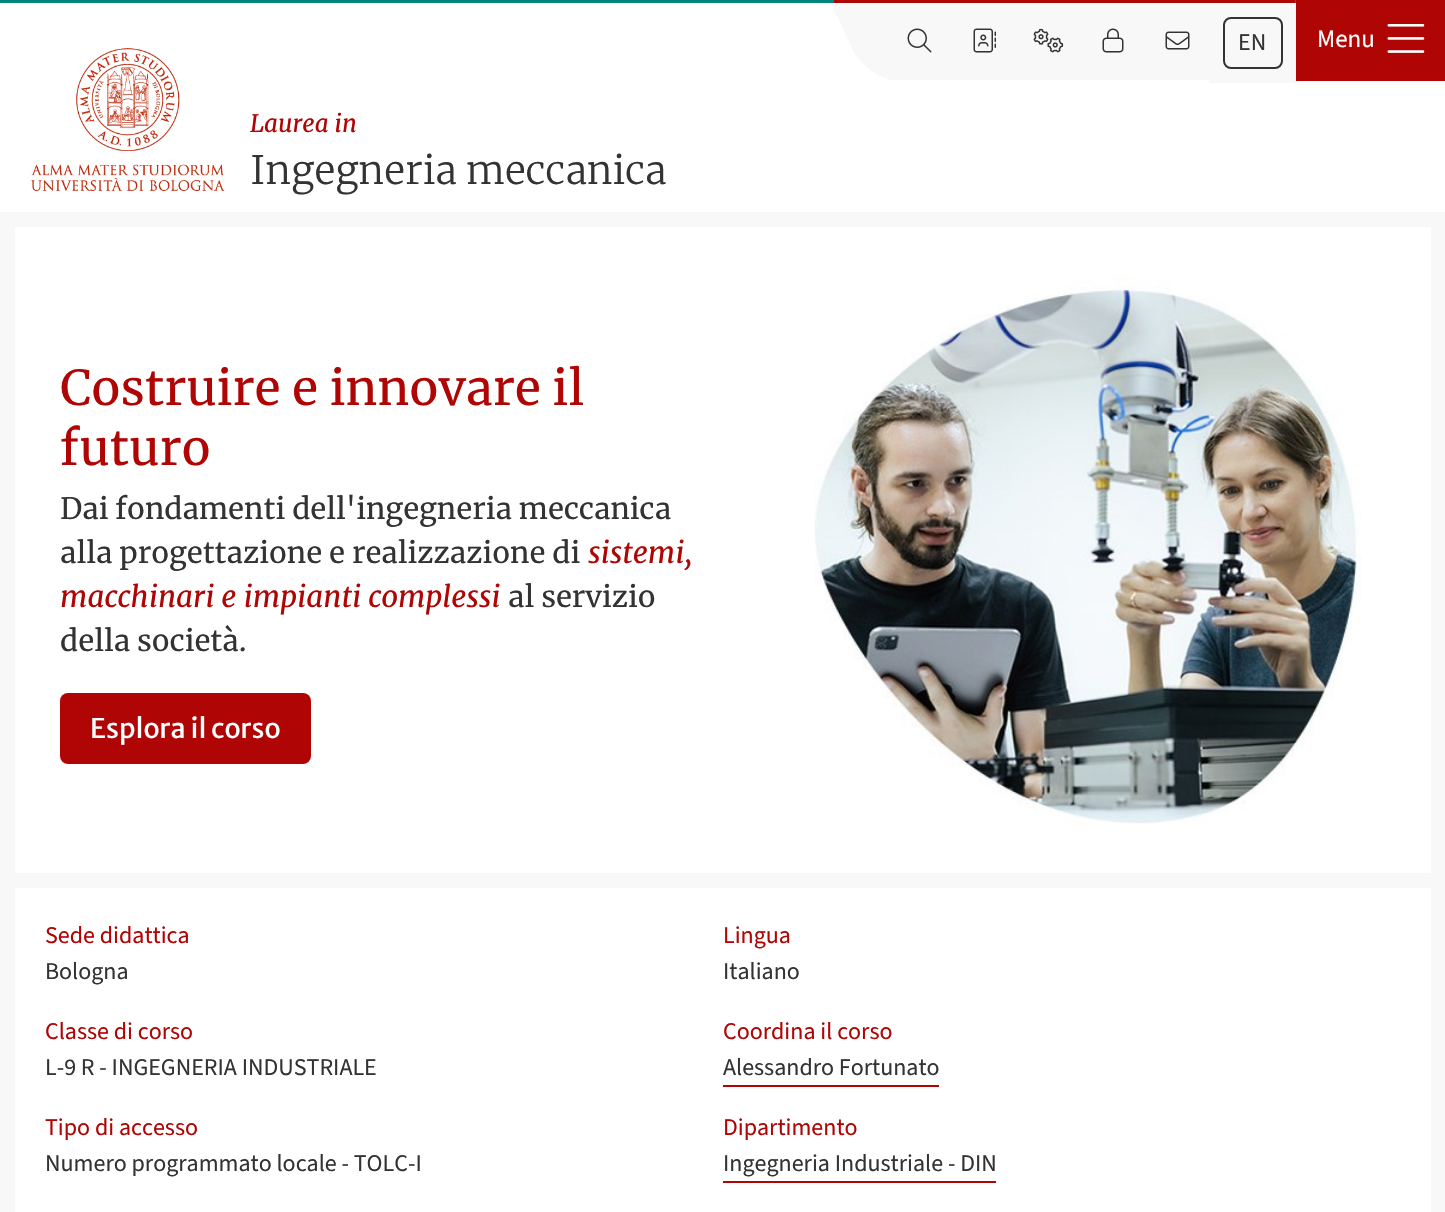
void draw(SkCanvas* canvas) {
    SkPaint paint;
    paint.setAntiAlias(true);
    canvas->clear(0xFFFFFFFF);
    paint.setColor(0xFFAF0605);
    canvas->drawRect(SkRect::MakeXYWH(1296, 0, 149, 81), paint);
    SkFont font1(fontMgr->matchFamilyStyle("Source Sans 3", SkFontStyle::Normal()), 25);
    font1.setSubpixel(true);
    paint.setColor(0xFFFFFFFF);
    canvas->drawString("Menu", 1317, 47, font1, paint);
    canvas->drawImageRect(SkImages::DeferredFromEncodedData(SkData::MakeFromFileName("img1.png")), SkRect::MakeXYWH(1387, 24, 38, 29), SkSamplingOptions());
    canvas->drawImageRect(SkImages::DeferredFromEncodedData(SkData::MakeFromFileName("img2.png")), SkRect::MakeXYWH(31, 48, 194, 143), SkSamplingOptions());
    SkFont font2(fontMgr->matchFamilyStyle("Merriweather", SkFontStyle::Italic()), 24);
    font2.setSubpixel(true);
    paint.setColor(0xFFAF0605);
    canvas->drawString("Laurea in", 250, 132, font2, paint);
    SkFont font3(fontMgr->matchFamilyStyle("Merriweather", SkFontStyle(300, SkFontStyle::kNormal_Width, SkFontStyle::kUpright_Slant)), 39);
    font3.setSubpixel(true);
    paint.setColor(0xFF333333);
    canvas->drawString("Ingegneria meccanica", 250, 184, font3, paint);
    paint.setColor(0xFF008578);
    canvas->drawRect(SkRect::MakeXYWH(0, 0, 1296, 3), paint);
    paint.setColor(0xFFAF0605);
    canvas->drawRect(SkRect::MakeXYWH(834, 0, 461, 3), paint);
    paint.setColor(0xFFF8F8F8);
    canvas->drawRect(SkRect::MakeXYWH(887, 3, 322, 77), paint);
    canvas->drawPath(SkPathBuilder().moveTo(831, 3).lineTo(951, 3).cubicTo(968, 3, 987, 16, 995, 33).lineTo(1017, 80).lineTo(897, 80).cubicTo(880, 80, 861, 66, 853, 50).close().detach(), paint);
    canvas->drawImageRect(SkImages::DeferredFromEncodedData(SkData::MakeFromFileName("img3.png")), SkRect::MakeXYWH(907, 28, 25, 25), SkSamplingOptions());
    canvas->drawImageRect(SkImages::DeferredFromEncodedData(SkData::MakeFromFileName("img4.png")), SkRect::MakeXYWH(973, 28, 23, 25), SkSamplingOptions());
    canvas->drawImageRect(SkImages::DeferredFromEncodedData(SkData::MakeFromFileName("img5.png")), SkRect::MakeXYWH(1033, 28, 31, 25), SkSamplingOptions());
    canvas->drawImageRect(SkImages::DeferredFromEncodedData(SkData::MakeFromFileName("img6.png")), SkRect::MakeXYWH(1102, 28, 22, 25), SkSamplingOptions());
    canvas->drawImageRect(SkImages::DeferredFromEncodedData(SkData::MakeFromFileName("img7.png")), SkRect::MakeXYWH(1165, 31, 25, 19), SkSamplingOptions());
    canvas->drawRect(SkRect::MakeXYWH(1209, 3, 87, 80), paint);
    paint.setStyle(SkPaint::kStroke_Style);
    paint.setStrokeWidth(2);
    paint.setColor(0xFF333333);
    canvas->drawRoundRect(SkRect::MakeXYWH(1224, 18, 58, 50), 7, 7, paint);
    SkFont font4(fontMgr->matchFamilyStyle("Source Sans 3", SkFontStyle::Normal()), 24);
    font4.setSubpixel(true);
    paint.setStyle(SkPaint::kFill_Style);
    canvas->drawString("EN", 1238, 50, font4, paint);
    paint.setColor(0xFFF8F8F8);
    canvas->drawRect(SkRect::MakeXYWH(0, 212, 1445, 1000), paint);
    paint.setColor(0xFFFFFFFF);
    canvas->drawRect(SkRect::MakeXYWH(15, 227, 1416, 646), paint);
    SkFont font5(fontMgr->matchFamilyStyle("Merriweather", SkFontStyle::Normal()), 48);
    font5.setSubpixel(true);
    paint.setColor(0xFFAF0605);
    canvas->drawString("Costruire e innovare il", 60, 405, font5, paint);
    canvas->drawString("futuro", 60, 465, font5, paint);
    SkFont font6(fontMgr->matchFamilyStyle("Merriweather", SkFontStyle::Normal()), 29.3f);
    font6.setSubpixel(true);
    paint.setColor(0xFF333333);
    canvas->drawString("Dai fondamenti dell'ingegneria meccanica", 60, 519, font6, paint);
    canvas->drawString("alla progettazione e realizzazione di", 60, 563, font6, paint);
    SkFont font7(fontMgr->matchFamilyStyle("Merriweather", SkFontStyle::Italic()), 29.3f);
    font7.setSubpixel(true);
    paint.setColor(0xFFAF0605);
    canvas->drawString("sistemi,", 588, 563, font7, paint);
    canvas->drawString("macchinari e impianti complessi", 60, 607, font7, paint);
    paint.setColor(0xFF333333);
    canvas->drawString("al servizio", 508, 607, font6, paint);
    canvas->drawString("della società.", 60, 651, font6, paint);
    paint.setColor(0xFFAF0605);
    canvas->drawRoundRect(SkRect::MakeXYWH(60, 693, 251, 71), 8, 8, paint);
    SkFont font8(fontMgr->matchFamilyStyle("Merriweather Sans", SkFontStyle::Normal()), 27);
    font8.setSubpixel(true);
    paint.setColor(0xFFFFFFFF);
    canvas->drawString("Esplora il corso", 90, 738, font8, paint);
    canvas->drawImageRect(SkImages::DeferredFromEncodedData(SkData::MakeFromFileName("img8.png")), SkRect::MakeXYWH(814, 276, 548, 548), SkSamplingOptions());
    canvas->drawRect(SkRect::MakeXYWH(15, 888, 1416, 324), paint);
    paint.setColor(0xFFAF0605);
    canvas->drawString("Sede didattica", 45, 943, font4, paint);
    paint.setColor(0xFF333333);
    canvas->drawString("Bologna", 45, 979, font4, paint);
    paint.setColor(0xFFAF0605);
    canvas->drawString("Lingua", 723, 943, font4, paint);
    paint.setColor(0xFF333333);
    canvas->drawString("Italiano", 723, 979, font4, paint);
    paint.setColor(0xFFAF0605);
    canvas->drawString("Classe di corso", 45, 1039, font4, paint);
    paint.setColor(0xFF333333);
    canvas->drawString("L-9 R - INGEGNERIA INDUSTRIALE", 45, 1075, font4, paint);
    paint.setColor(0xFFAF0605);
    canvas->drawString("Coordina il corso", 723, 1039, font4, paint);
    paint.setColor(0xFF333333);
    canvas->drawString("Alessandro Fortunato", 723, 1075, font4, paint);
    paint.setColor(0xFFAF0605);
    canvas->drawRect(SkRect::MakeXYWH(723, 1085, 216, 2), paint);
    canvas->drawString("Tipo di accesso", 45, 1135, font4, paint);
    paint.setColor(0xFF333333);
    canvas->drawString("Numero programmato locale - TOLC-I", 45, 1171, font4, paint);
    paint.setColor(0xFFAF0605);
    canvas->drawString("Dipartimento", 723, 1135, font4, paint);
    paint.setColor(0xFF333333);
    canvas->drawString("Ingegneria Industriale - DIN", 723, 1171, font4, paint);
    paint.setColor(0xFFAF0605);
    canvas->drawRect(SkRect::MakeXYWH(723, 1181, 273, 2), paint);
}
